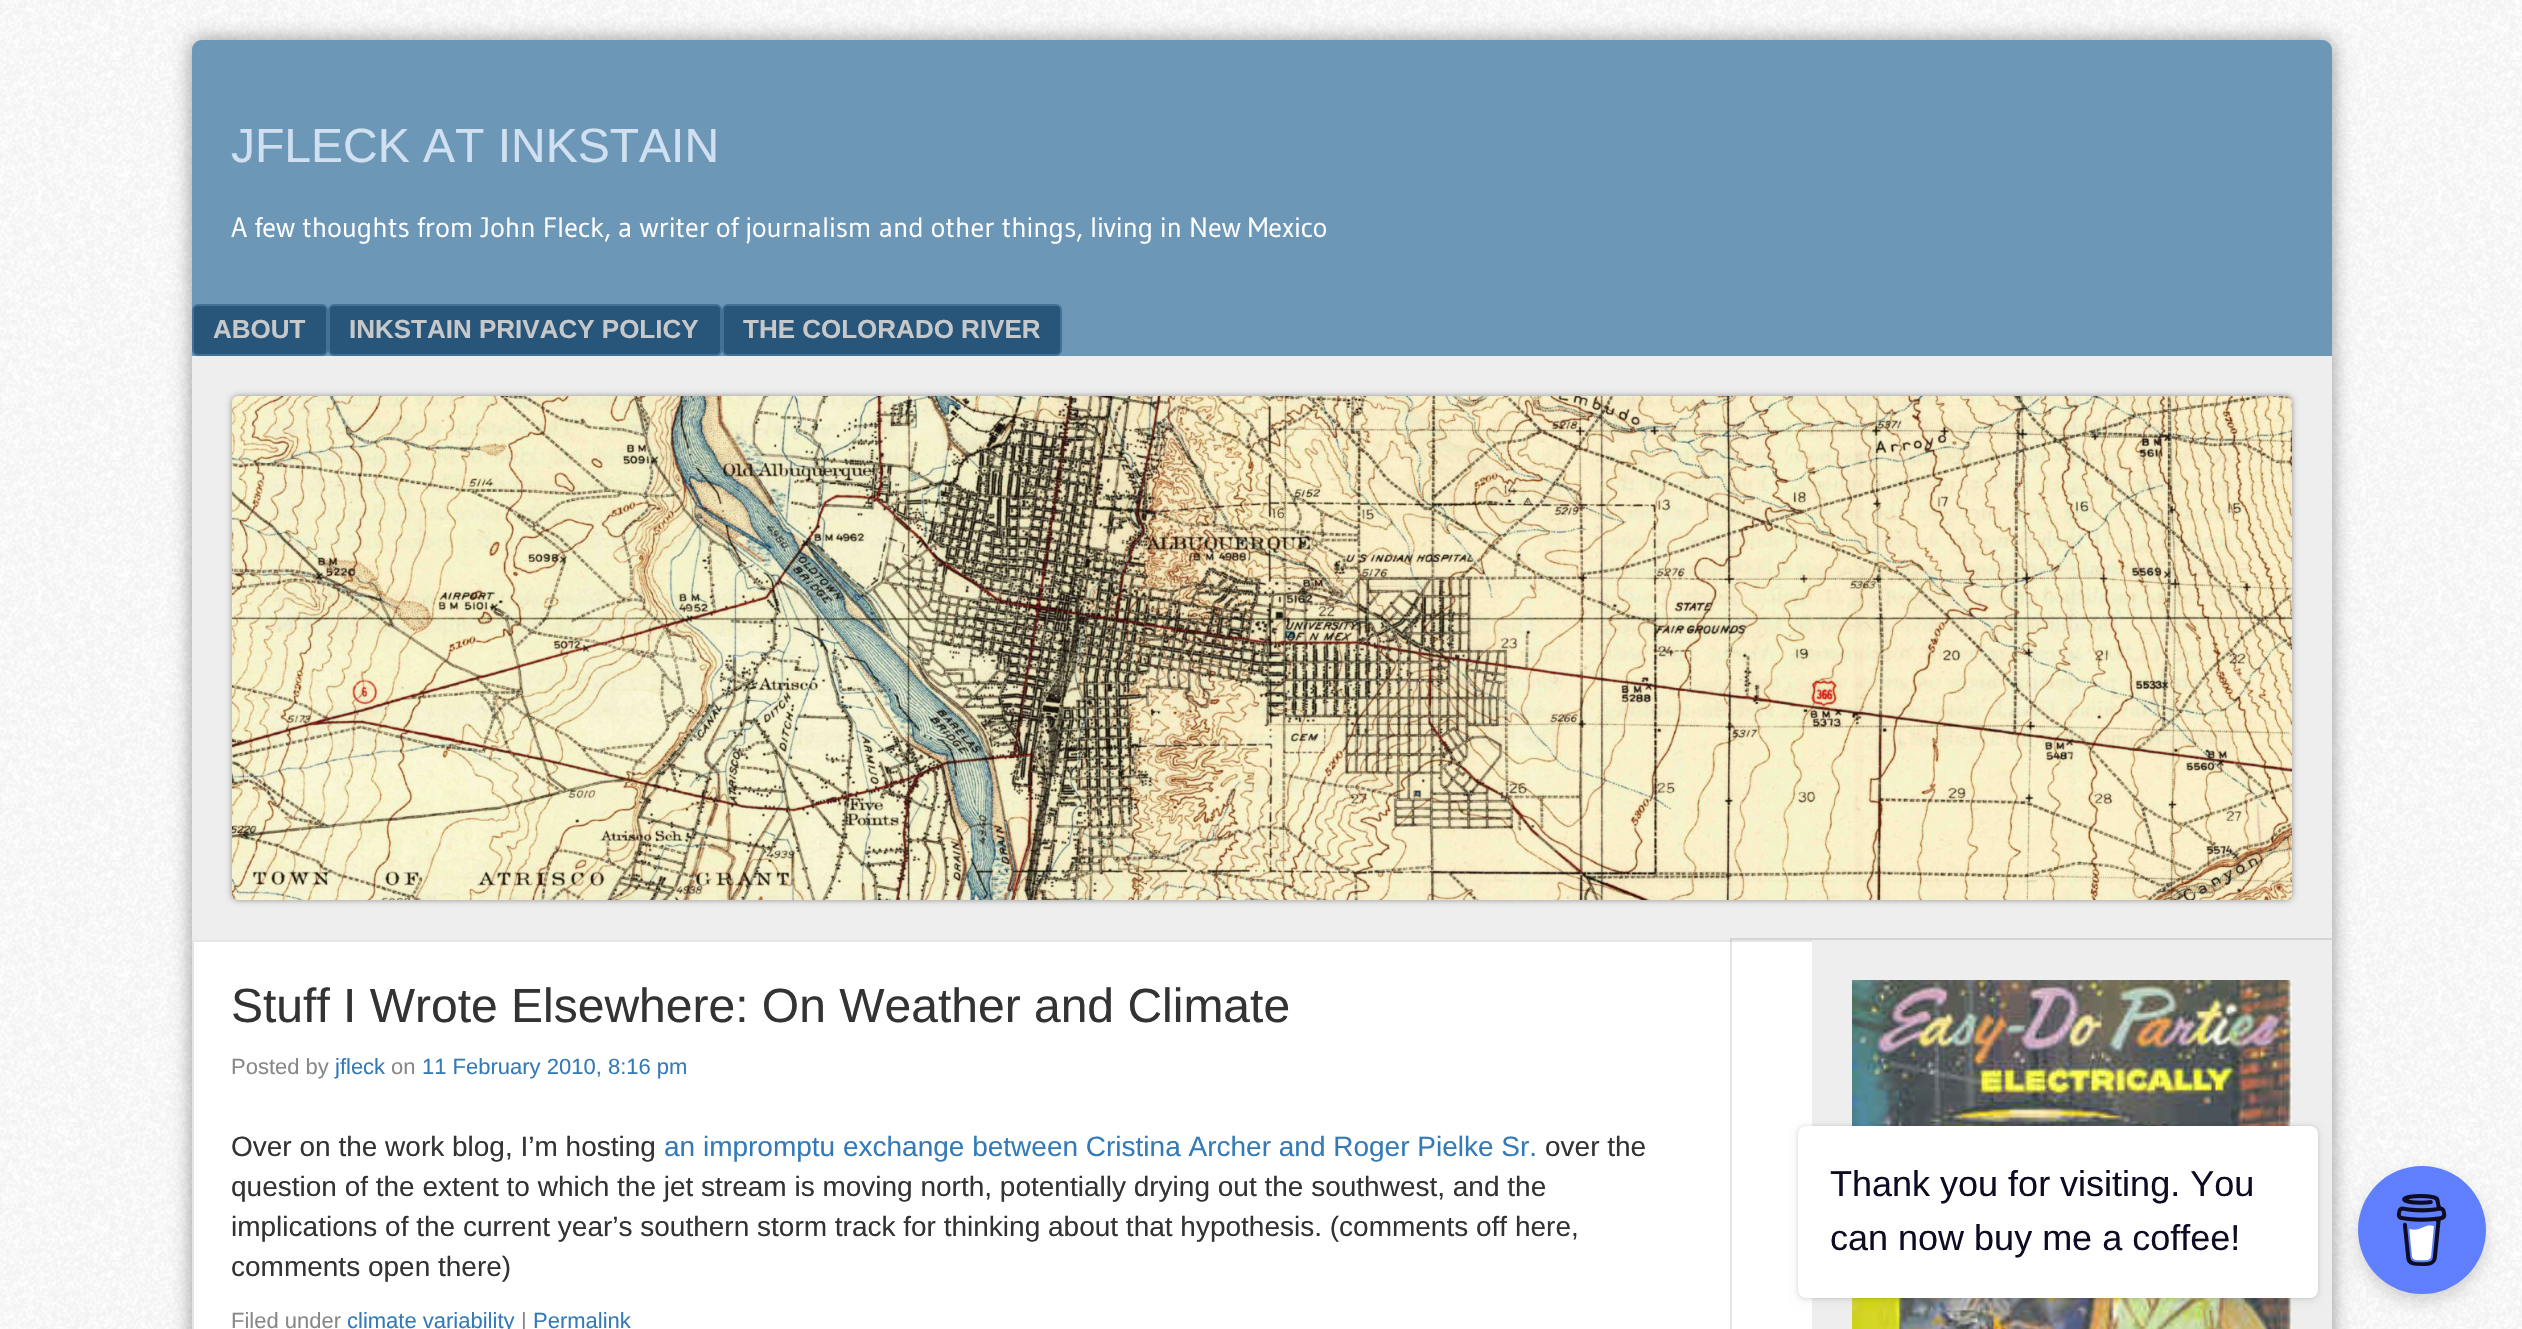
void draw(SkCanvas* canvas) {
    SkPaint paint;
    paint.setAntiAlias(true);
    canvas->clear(0xFFFFFFFF);
    canvas->drawImageRect(SkImages::DeferredFromEncodedData(SkData::MakeFromFileName("img1.png")), SkRect::MakeXYWH(0, 0, 2522, 1329), SkSamplingOptions());
    paint.setColor(0x66000000);
    paint.setMaskFilter(SkMaskFilter::MakeBlur(kNormal_SkBlurStyle, 10));
    canvas->drawRoundRect(SkRect::MakeXYWH(192, 40, 2140, 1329), 10, 10, paint);
    paint.setMaskFilter(nullptr);
    paint.setColor(0xFF6D97B7);
    canvas->drawPath(SkPathBuilder().moveTo(202, 40).lineTo(2322, 40).cubicTo(2327.5f, 40, 2332, 44.5f, 2332, 50).lineTo(2332, 940).lineTo(192, 940).lineTo(192, 50).cubicTo(192, 44.5f, 196.5f, 40, 202, 40).close().detach(), paint);
    SkFont font1(fontMgr->matchFamilyStyle("Liberation Sans", SkFontStyle::Normal()), 48);
    font1.setSubpixel(true);
    paint.setColor(0xFFD0E0F0);
    canvas->drawString("JFLECK AT INKSTAIN", 231, 162, font1, paint);
    SkFont font2(fontMgr->matchFamilyStyle("Gudea", SkFontStyle::Normal()), 28);
    font2.setSubpixel(true);
    paint.setColor(0xFFFFFFFF);
    canvas->drawString("A few thoughts from John Fleck, a writer of journalism and other things, living in New Mexico", 231, 237, font2, paint);
    paint.setColor(0xFF27567A);
    canvas->drawRoundRect(SkRect::MakeXYWH(193, 305, 134, 50), 5, 5, paint);
    paint.setStyle(SkPaint::kStroke_Style);
    paint.setStrokeWidth(2);
    paint.setColor(0xFF417196);
    canvas->drawRoundRect(SkRect::MakeXYWH(193, 305, 134, 50), 5, 5, paint);
    SkFont font3(fontMgr->matchFamilyStyle("Liberation Sans", SkFontStyle::Bold()), 26);
    font3.setSubpixel(true);
    paint.setStyle(SkPaint::kFill_Style);
    paint.setColor(0xFFC6C8C9);
    canvas->drawString("ABOUT", 213, 338, font3, paint);
    paint.setColor(0xFF27567A);
    canvas->drawRoundRect(SkRect::MakeXYWH(329, 305, 392, 50), 5, 5, paint);
    paint.setStyle(SkPaint::kStroke_Style);
    paint.setColor(0xFF417196);
    canvas->drawRoundRect(SkRect::MakeXYWH(329, 305, 392, 50), 5, 5, paint);
    paint.setStyle(SkPaint::kFill_Style);
    paint.setColor(0xFFC6C8C9);
    canvas->drawString("INKSTAIN PRIVACY POLICY", 349, 338, font3, paint);
    paint.setColor(0xFF27567A);
    canvas->drawRoundRect(SkRect::MakeXYWH(723, 305, 338, 50), 5, 5, paint);
    paint.setStyle(SkPaint::kStroke_Style);
    paint.setColor(0xFF417196);
    canvas->drawRoundRect(SkRect::MakeXYWH(723, 305, 338, 50), 5, 5, paint);
    paint.setStyle(SkPaint::kFill_Style);
    paint.setColor(0xFFC6C8C9);
    canvas->drawString("THE COLORADO RIVER", 743, 338, font3, paint);
    paint.setColor(0xFFEEEEEE);
    canvas->drawRect(SkRect::MakeXYWH(192, 356, 2140, 584), paint);
    paint.setColor(0x66000000);
    paint.setMaskFilter(SkMaskFilter::MakeBlur(kNormal_SkBlurStyle, 3));
    canvas->drawRoundRect(SkRect::MakeXYWH(232, 396, 2060, 504), 6, 6, paint);
    paint.setMaskFilter(nullptr);
    canvas->drawImageRect(SkImages::DeferredFromEncodedData(SkData::MakeFromFileName("img2.png")), SkRect::MakeXYWH(232, 396, 2060, 504), SkSamplingOptions());
    paint.setColor(0xFFFFFFFF);
    canvas->drawRect(SkRect::MakeXYWH(194, 942, 1618, 387), paint);
    paint.setStyle(SkPaint::kStroke_Style);
    paint.setColor(0xFFE6E6E6);
    canvas->drawRect(SkRect::MakeXYWH(193, 941, 2138, 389), paint);
    paint.setStyle(SkPaint::kFill_Style);
    paint.setColor(0xFF333333);
    canvas->drawString("Stuff I Wrote Elsewhere: On Weather and Climate", 231, 1022, font1, paint);
    SkFont font4(fontMgr->matchFamilyStyle("Liberation Sans", SkFontStyle::Normal()), 22);
    font4.setSubpixel(true);
    paint.setColor(0xFF888888);
    canvas->drawString("Posted by", 231, 1074, font4, paint);
    paint.setColor(0xFF337AB7);
    canvas->drawString("jfleck", 335, 1074, font4, paint);
    paint.setColor(0xFF888888);
    canvas->drawString("on", 391, 1074, font4, paint);
    paint.setColor(0xFF337AB7);
    canvas->drawString("11 February 2010, 8:16 pm", 422, 1074, font4, paint);
    SkFont font5(fontMgr->matchFamilyStyle("Liberation Sans", SkFontStyle::Normal()), 28);
    font5.setSubpixel(true);
    paint.setColor(0xFF333333);
    canvas->drawString("Over on the work blog, I’m hosting", 231, 1156, font5, paint);
    paint.setColor(0xFF337AB7);
    canvas->drawString("an impromptu exchange between Cristina Archer and Roger Pielke Sr.", 664, 1156, font5, paint);
    paint.setColor(0xFF333333);
    canvas->drawString("over the", 1545, 1156, font5, paint);
    canvas->drawString("question of the extent to which the jet stream is moving north, potentially drying out the southwest, and the", 231, 1196, font5, paint);
    canvas->drawString("implications of the current year’s southern storm track for thinking about that hypothesis. (comments off here,", 231, 1236, font5, paint);
    canvas->drawString("comments open there)", 231, 1276, font5, paint);
    paint.setColor(0xFF888888);
    canvas->drawString("Filed under", 231, 1328, font4, paint);
    paint.setColor(0xFF337AB7);
    canvas->drawString("climate variability", 347, 1328, font4, paint);
    paint.setColor(0xFF888888);
    canvas->drawString("|", 521, 1328, font4, paint);
    paint.setColor(0xFF337AB7);
    canvas->drawString("Permalink", 533, 1328, font4, paint);
    paint.setColor(0x1A000000);
    canvas->drawPath(SkPathBuilder().moveTo(1730, 938).lineTo(1730, 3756).cubicTo(1730, 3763, 1735, 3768, 1742, 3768).lineTo(2332, 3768).lineTo(2332, 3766).lineTo(1742, 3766).cubicTo(1736, 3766, 1732, 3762, 1732, 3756).lineTo(1732, 940).lineTo(2332, 940).lineTo(2332, 938).close().detach(), paint);
    paint.setColor(0xFFEEEEEE);
    canvas->drawRect(SkRect::MakeXYWH(1812, 940, 520, 389), paint);
    canvas->drawImageRect(SkImages::DeferredFromEncodedData(SkData::MakeFromFileName("img3.png")), SkRect::MakeXYWH(1852, 980, 440, 349), SkSamplingOptions());
    paint.setColor(0x26000000);
    paint.setMaskFilter(SkMaskFilter::MakeBlur(kNormal_SkBlurStyle, 2));
    canvas->drawRoundRect(SkRect::MakeXYWH(1798, 1126, 520, 172), 8, 8, paint);
    paint.setMaskFilter(nullptr);
    paint.setColor(0x0D000000);
    paint.setMaskFilter(SkMaskFilter::MakeBlur(kNormal_SkBlurStyle, 5));
    canvas->drawRoundRect(SkRect::MakeXYWH(1798, 1130, 520, 172), 8, 8, paint);
    paint.setMaskFilter(nullptr);
    paint.setColor(0xFFFFFFFF);
    canvas->drawRoundRect(SkRect::MakeXYWH(1798, 1126, 520, 172), 8, 8, paint);
    SkFont font6(fontMgr->matchFamilyStyle("Liberation Sans", SkFontStyle::Normal()), 36);
    font6.setSubpixel(true);
    paint.setColor(0xFF0D0C22);
    canvas->drawString("Thank you for visiting. You", 1830, 1196, font6, paint);
    canvas->drawString("can now buy me a coffee!", 1830, 1250, font6, paint);
    paint.setColor(0x26000000);
    paint.setMaskFilter(SkMaskFilter::MakeBlur(kNormal_SkBlurStyle, 8));
    canvas->drawRoundRect(SkRect::MakeXYWH(2358, 1174, 128, 128), 64, 64, paint);
    paint.setMaskFilter(nullptr);
    paint.setColor(0xFF5F7FFF);
    canvas->drawCircle(2422, 1230, 64, paint);
    canvas->drawImageRect(SkImages::DeferredFromEncodedData(SkData::MakeFromFileName("img4.png")), SkRect::MakeXYWH(2396, 1194, 51, 72), SkSamplingOptions());
}
